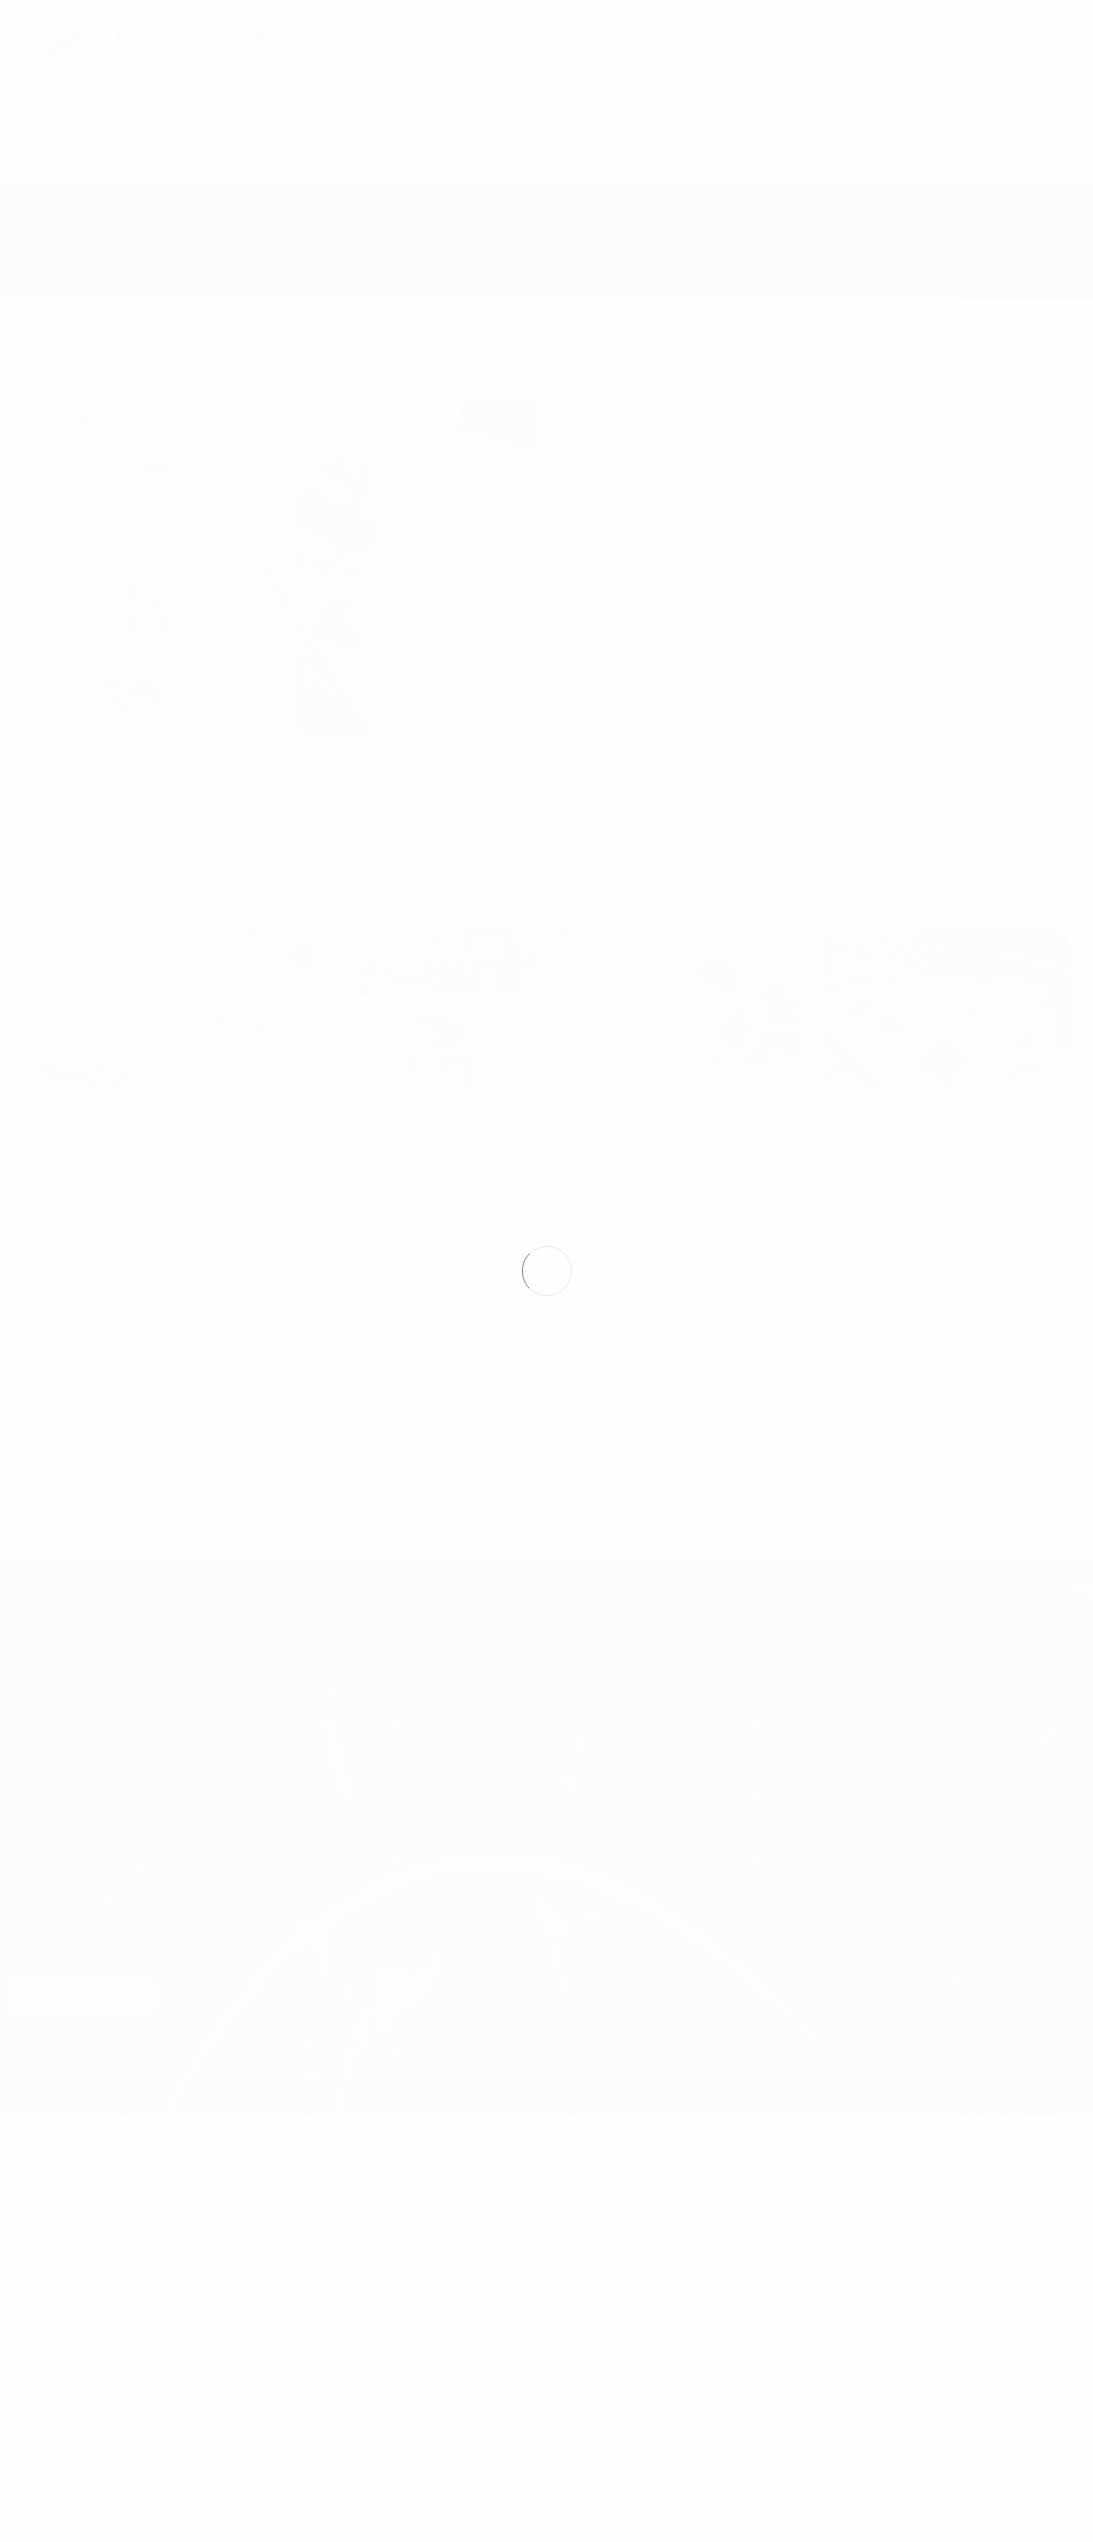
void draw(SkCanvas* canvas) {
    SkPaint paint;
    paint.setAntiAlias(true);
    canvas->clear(0xFFFEFEFE);
    canvas->drawImageRect(SkImages::DeferredFromEncodedData(SkData::MakeFromFileName("img1.png")), SkRect::MakeXYWH(23, 24, 246, 40), SkSamplingOptions());
    canvas->drawImageRect(SkImages::DeferredFromEncodedData(SkData::MakeFromFileName("img2.png")), SkRect::MakeXYWH(628, 27, 52, 41), SkSamplingOptions());
    paint.setColor(0xFFFBFDFE);
    canvas->drawRoundRect(SkRect::MakeXYWH(701, 18, 135, 54), 10, 10, paint);
    canvas->drawImageRect(SkImages::DeferredFromEncodedData(SkData::MakeFromFileName("img3.png")), SkRect::MakeXYWH(0, 182, 1093, 116), SkSamplingOptions());
    canvas->drawImageRect(SkImages::DeferredFromEncodedData(SkData::MakeFromFileName("img4.png")), SkRect::MakeXYWH(22, 398, 514, 343), SkSamplingOptions());
    canvas->drawImageRect(SkImages::DeferredFromEncodedData(SkData::MakeFromFileName("img5.png")), SkRect::MakeXYWH(22, 925, 247, 164), SkSamplingOptions());
    canvas->drawImageRect(SkImages::DeferredFromEncodedData(SkData::MakeFromFileName("img6.png")), SkRect::MakeXYWH(289, 925, 248, 164), SkSamplingOptions());
    canvas->drawImageRect(SkImages::DeferredFromEncodedData(SkData::MakeFromFileName("img7.png")), SkRect::MakeXYWH(557, 925, 247, 164), SkSamplingOptions());
    canvas->drawImageRect(SkImages::DeferredFromEncodedData(SkData::MakeFromFileName("img8.png")), SkRect::MakeXYWH(824, 925, 247, 164), SkSamplingOptions());
    paint.setStyle(SkPaint::kStroke_Style);
    paint.setStrokeWidth(1);
    paint.setColor(0xFFE8E8E9);
    canvas->drawPath(SkPathBuilder().moveTo(529.5f, 1253.5f).cubicTo(535.5f, 1248, 544, 1245.5f, 552, 1247).cubicTo(580.5f, 1252.5f, 576, 1295.5f, 547, 1295.5f).cubicTo(540.5f, 1295.5f, 534, 1293, 529.5f, 1288.5f).detach(), paint);
    paint.setColor(0xFF7E7E7F);
    canvas->drawPath(SkPathBuilder().moveTo(529.5f, 1288.5f).cubicTo(520, 1279, 520, 1263, 529.5f, 1253.5f).detach(), paint);
    canvas->drawImageRect(SkImages::DeferredFromEncodedData(SkData::MakeFromFileName("img9.png")), SkRect::MakeXYWH(0, 1558, 1093, 557), SkSamplingOptions());
    canvas->drawImageRect(SkImages::DeferredFromEncodedData(SkData::MakeFromFileName("img10.png")), SkRect::MakeXYWH(386, 1720, 13, 10), SkSamplingOptions());
    canvas->drawImageRect(SkImages::DeferredFromEncodedData(SkData::MakeFromFileName("img10.png")), SkRect::MakeXYWH(386, 1788, 13, 10), SkSamplingOptions());
    canvas->drawImageRect(SkImages::DeferredFromEncodedData(SkData::MakeFromFileName("img11.png")), SkRect::MakeXYWH(386, 1855, 13, 10), SkSamplingOptions());
    canvas->drawImageRect(SkImages::DeferredFromEncodedData(SkData::MakeFromFileName("img12.png")), SkRect::MakeXYWH(386, 1923, 13, 10), SkSamplingOptions());
    canvas->drawImageRect(SkImages::DeferredFromEncodedData(SkData::MakeFromFileName("img10.png")), SkRect::MakeXYWH(751, 1720, 13, 10), SkSamplingOptions());
    canvas->drawImageRect(SkImages::DeferredFromEncodedData(SkData::MakeFromFileName("img10.png")), SkRect::MakeXYWH(751, 1788, 13, 10), SkSamplingOptions());
    canvas->drawImageRect(SkImages::DeferredFromEncodedData(SkData::MakeFromFileName("img13.png")), SkRect::MakeXYWH(751, 1855, 13, 10), SkSamplingOptions());
    canvas->drawImageRect(SkImages::DeferredFromEncodedData(SkData::MakeFromFileName("img14.png")), SkRect::MakeXYWH(751, 1923, 13, 10), SkSamplingOptions());
    paint.setStyle(SkPaint::kFill_Style);
    paint.setColor(0xFFFCFDFE);
    canvas->drawRoundRect(SkRect::MakeXYWH(10, 1977, 146, 38), 3, 3, paint);
    canvas->drawImageRect(SkImages::DeferredFromEncodedData(SkData::MakeFromFileName("img15.png")), SkRect::MakeXYWH(38, 2153, 38, 38), SkSamplingOptions());
    canvas->drawImageRect(SkImages::DeferredFromEncodedData(SkData::MakeFromFileName("img16.png")), SkRect::MakeXYWH(400, 2155, 40, 36), SkSamplingOptions());
    canvas->drawImageRect(SkImages::DeferredFromEncodedData(SkData::MakeFromFileName("img17.png")), SkRect::MakeXYWH(765, 2153, 40, 35), SkSamplingOptions());
}
